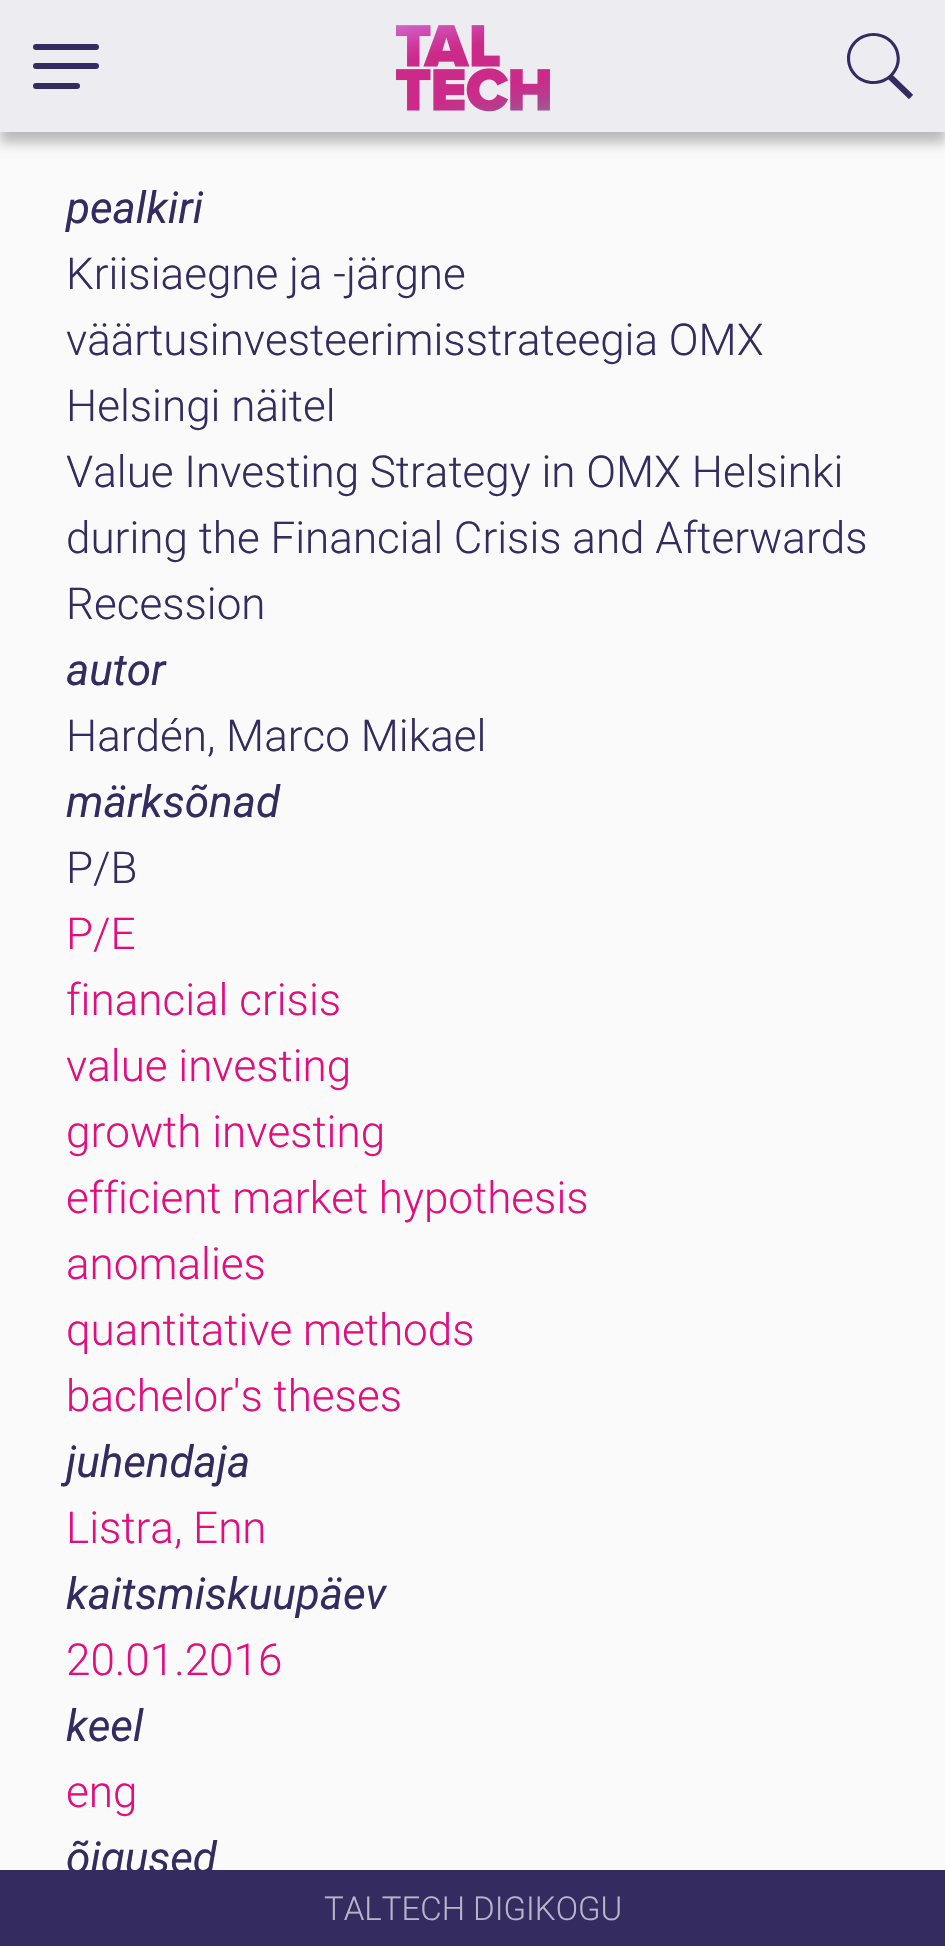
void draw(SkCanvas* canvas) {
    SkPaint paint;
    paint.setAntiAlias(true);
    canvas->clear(0xFFFBFAFB);
    paint.setColor(0x40000000);
    paint.setMaskFilter(SkMaskFilter::MakeBlur(kNormal_SkBlurStyle, 5.5f));
    canvas->drawRect(SkRect::MakeXYWH(0, 11, 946, 132), paint);
    paint.setMaskFilter(nullptr);
    paint.setColor(0xFFECECF1);
    canvas->drawRect(SkRect::MakeXYWH(0, 0, 945, 132), paint);
    paint.setColor(0xFF342C61);
    canvas->drawRoundRect(SkRect::MakeXYWH(33, 63, 66, 6), 3, 3, paint);
    canvas->drawRoundRect(SkRect::MakeXYWH(33, 44, 66, 6), 3, 3, paint);
    canvas->drawRoundRect(SkRect::MakeXYWH(33, 83, 47, 6), 3, 3, paint);
    canvas->drawImageRect(SkImages::DeferredFromEncodedData(SkData::MakeFromFileName("img1.png")), SkRect::MakeXYWH(396, 25, 154, 87), SkSamplingOptions());
    canvas->drawImageRect(SkImages::DeferredFromEncodedData(SkData::MakeFromFileName("img2.png")), SkRect::MakeXYWH(847, 33, 66, 66), SkSamplingOptions());
    SkFont font1(fontMgr->matchFamilyStyle("Roboto", SkFontStyle::Italic()), 44);
    font1.setSubpixel(true);
    canvas->drawString("pealkiri", 66, 223, font1, paint);
    SkFont font2(fontMgr->matchFamilyStyle("Roboto", SkFontStyle(300, SkFontStyle::kNormal_Width, SkFontStyle::kUpright_Slant)), 44);
    font2.setSubpixel(true);
    canvas->drawString("Kriisiaegne ja -järgne", 66, 289, font2, paint);
    canvas->drawString("väärtusinvesteerimisstrateegia OMX", 66, 355, font2, paint);
    canvas->drawString("Helsingi näitel", 66, 421, font2, paint);
    canvas->drawString("Value Investing Strategy in OMX Helsinki", 66, 487, font2, paint);
    canvas->drawString("during the Financial Crisis and Afterwards", 66, 553, font2, paint);
    canvas->drawString("Recession", 66, 619, font2, paint);
    canvas->drawString("autor", 66, 685, font1, paint);
    canvas->drawString("Hardén, Marco Mikael", 66, 751, font2, paint);
    canvas->drawString("märksõnad", 66, 817, font1, paint);
    canvas->drawString("P/B", 66, 883, font2, paint);
    paint.setColor(0xFFE40D7E);
    canvas->drawString("P/E", 66, 949, font2, paint);
    canvas->drawString("financial crisis", 66, 1015, font2, paint);
    canvas->drawString("value investing", 66, 1081, font2, paint);
    canvas->drawString("growth investing", 66, 1147, font2, paint);
    canvas->drawString("efficient market hypothesis", 66, 1213, font2, paint);
    canvas->drawString("anomalies", 66, 1279, font2, paint);
    canvas->drawString("quantitative methods", 66, 1345, font2, paint);
    canvas->drawString("bachelor's theses", 66, 1411, font2, paint);
    paint.setColor(0xFF342C61);
    canvas->drawString("juhendaja", 66, 1477, font1, paint);
    paint.setColor(0xFFE40D7E);
    canvas->drawString("Listra, Enn", 66, 1543, font2, paint);
    paint.setColor(0xFF342C61);
    canvas->drawString("kaitsmiskuupäev", 66, 1609, font1, paint);
    paint.setColor(0xFFE40D7E);
    canvas->drawString("20.01.2016", 66, 1675, font2, paint);
    paint.setColor(0xFF342C61);
    canvas->drawString("keel", 66, 1741, font1, paint);
    paint.setColor(0xFFE40D7E);
    canvas->drawString("eng", 66, 1807, font2, paint);
    paint.setColor(0xFF342C61);
    canvas->drawString("õigused", 66, 1873, font1, paint);
    canvas->drawRect(SkRect::MakeXYWH(0, 1870, 945, 76), paint);
    SkFont font3(fontMgr->matchFamilyStyle("Roboto", SkFontStyle(300, SkFontStyle::kNormal_Width, SkFontStyle::kUpright_Slant)), 33);
    font3.setSubpixel(true);
    paint.setColor(0xFFB8B5C8);
    canvas->drawString("TALTECH DIGIKOGU", 324, 1920, font3, paint);
}
